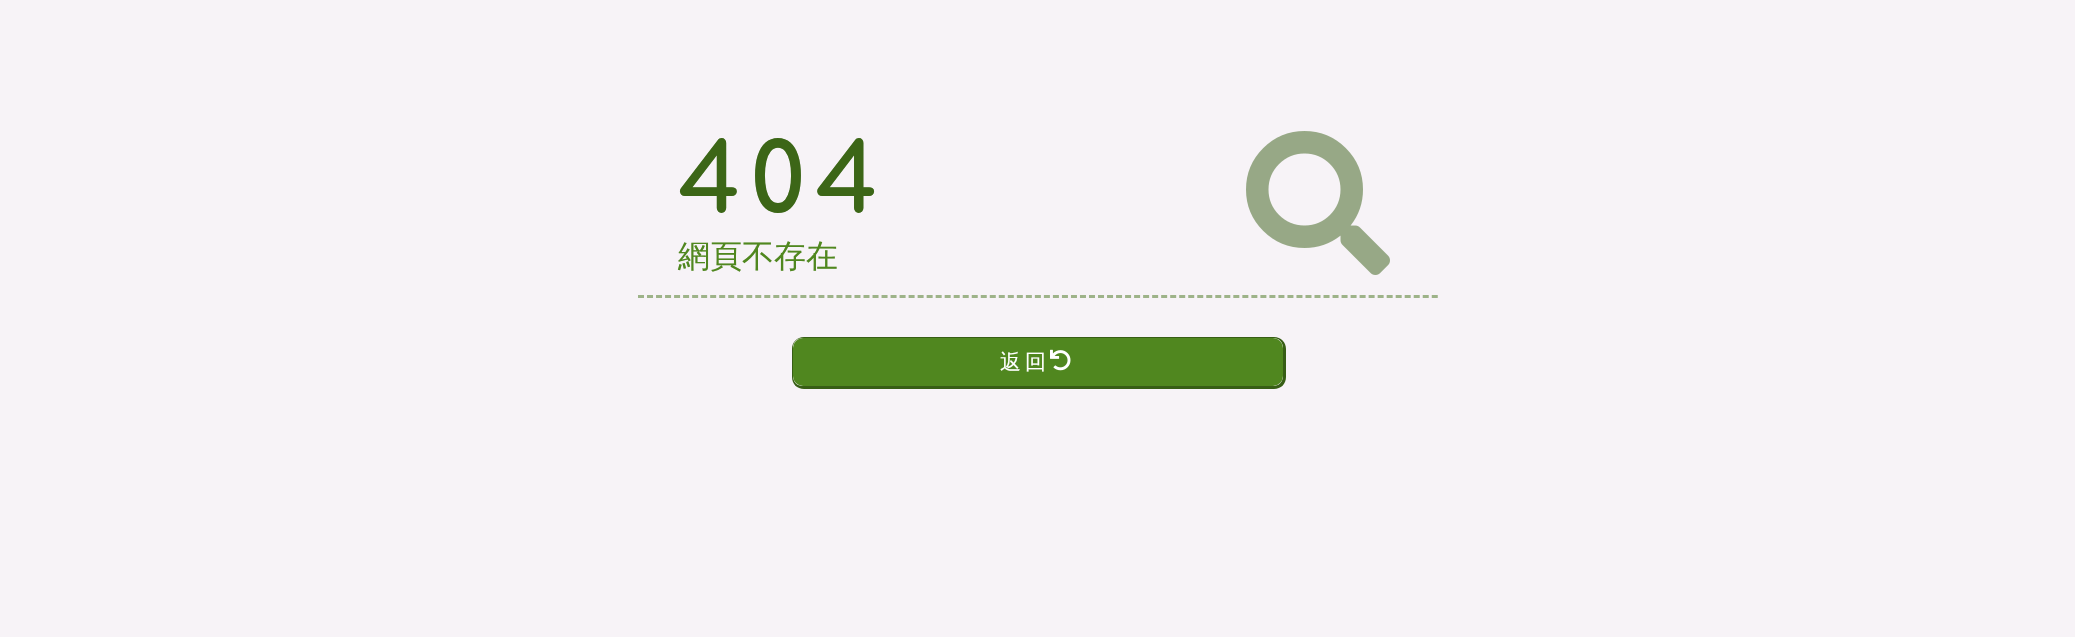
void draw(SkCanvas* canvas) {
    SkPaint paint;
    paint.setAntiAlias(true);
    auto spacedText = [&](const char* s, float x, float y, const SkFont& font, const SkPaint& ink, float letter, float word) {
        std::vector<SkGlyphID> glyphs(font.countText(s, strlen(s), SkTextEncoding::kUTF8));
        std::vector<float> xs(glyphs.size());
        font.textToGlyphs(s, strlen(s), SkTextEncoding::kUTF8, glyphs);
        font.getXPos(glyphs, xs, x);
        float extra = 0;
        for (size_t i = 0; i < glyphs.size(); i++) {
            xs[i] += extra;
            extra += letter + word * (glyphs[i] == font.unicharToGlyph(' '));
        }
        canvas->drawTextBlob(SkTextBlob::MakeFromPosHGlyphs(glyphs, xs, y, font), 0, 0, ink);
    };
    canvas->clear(0xFFF7F3F7);
    paint.setStyle(SkPaint::kStroke_Style);
    paint.setStrokeWidth(3);
    paint.setColor(0xFF9EB389);
    paint.setPathEffect(SkDashPathEffect::Make({{6, 3.02f}}, 0));
    canvas->drawPath(SkPathBuilder().moveTo(638, 296.5f).lineTo(1438, 296.5f).detach(), paint);
    paint.setPathEffect(nullptr);
    SkFont font1(fontMgr->matchFamilyStyle("Comfortaa", SkFontStyle::Bold()), 96);
    font1.setSubpixel(true);
    paint.setStyle(SkPaint::kFill_Style);
    paint.setColor(0xFF3C6617);
    spacedText("404", 678, 213, font1, paint, 9.5f, 0);
    SkFont font2(fontMgr->matchFamilyStyle("WenQuanYi Zen Hei", SkFontStyle(500, SkFontStyle::kNormal_Width, SkFontStyle::kUpright_Slant)), 32);
    font2.setSubpixel(true);
    paint.setColor(0xFF50871F);
    canvas->drawString("網頁不存在", 678, 267, font2, paint);
    canvas->drawImageRect(SkImages::DeferredFromEncodedData(SkData::MakeFromFileName("img1.png")), SkRect::MakeXYWH(1246, 131, 144, 144), SkSamplingOptions());
    paint.setColor(0xFF375E15);
    canvas->drawPath(SkPathBuilder(SkPathFillType::kEvenOdd).moveTo(804, 337).cubicTo(797, 337, 792, 342, 792, 349).lineTo(792, 377).cubicTo(792, 384, 797, 389, 804, 389).lineTo(1274, 389).cubicTo(1281, 389, 1286, 384, 1286, 377).lineTo(1286, 349).cubicTo(1286, 342, 1281, 337, 1274, 337).close().moveTo(803, 338).cubicTo(797, 338, 793, 342, 793, 348).lineTo(793, 376).cubicTo(793, 382, 797, 386, 803, 386).lineTo(1273, 386).cubicTo(1279, 386, 1283, 382, 1283, 376).lineTo(1283, 348).cubicTo(1283, 342, 1279, 338, 1273, 338).close().detach(), paint);
    paint.setColor(0xFF50871F);
    canvas->drawRoundRect(SkRect::MakeXYWH(793, 338, 490, 48), 10, 10, paint);
    SkFont font3(fontMgr->matchFamilyStyle("WenQuanYi Zen Hei", SkFontStyle(500, SkFontStyle::kNormal_Width, SkFontStyle::kUpright_Slant)), 21);
    font3.setSubpixel(true);
    paint.setColor(0xFFFFFFFF);
    spacedText("返回", 1000, 369, font3, paint, 4, 0);
    canvas->drawImageRect(SkImages::DeferredFromEncodedData(SkData::MakeFromFileName("img2.png")), SkRect::MakeXYWH(1050, 349, 21, 22), SkSamplingOptions());
}
